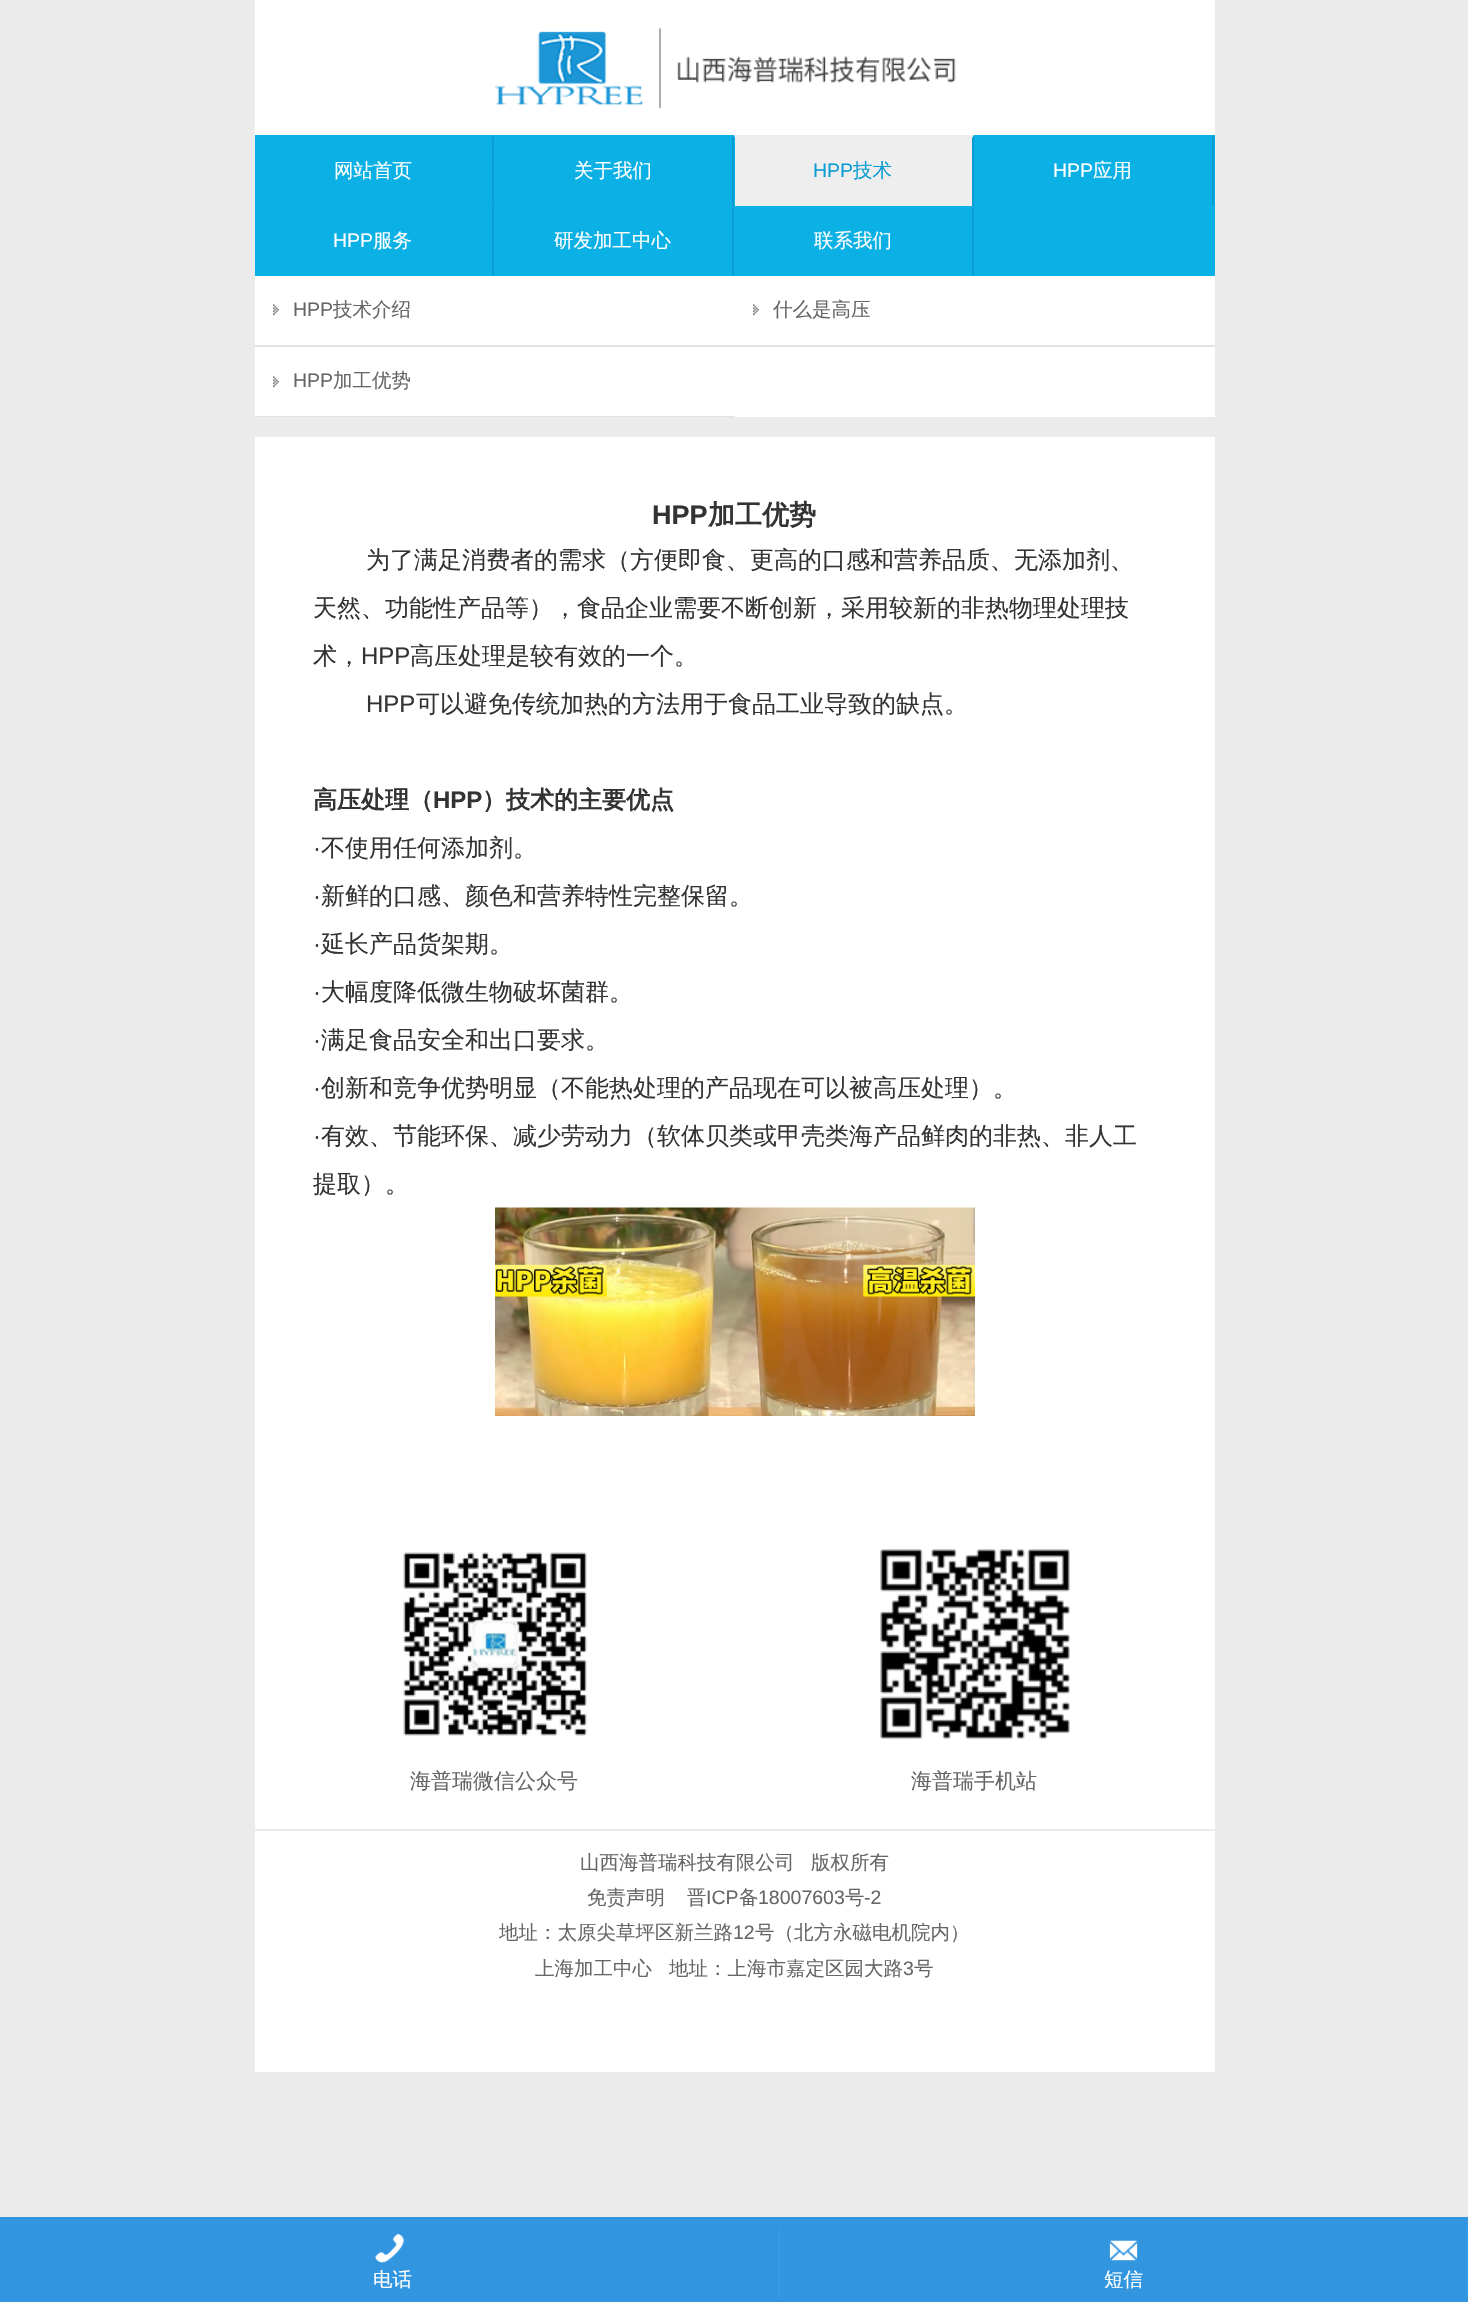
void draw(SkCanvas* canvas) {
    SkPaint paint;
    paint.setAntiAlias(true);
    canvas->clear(0xFFEBEBEB);
    paint.setColor(0xFFFFFFFF);
    canvas->drawRect(SkRect::MakeXYWH(255, 0, 960, 135), paint);
    canvas->drawImageRect(SkImages::DeferredFromEncodedData(SkData::MakeFromFileName("img1.png")), SkRect::MakeXYWH(495, 28, 461, 81), SkSamplingOptions());
    paint.setColor(0xFF0BB0E4);
    canvas->drawRect(SkRect::MakeXYWH(255, 135, 960, 141), paint);
    paint.setColor(0xFF0A9DD4);
    canvas->drawPath(SkPathBuilder().moveTo(494, 135).lineTo(494, 206).lineTo(492, 206).lineTo(492, 138).close().detach(), paint);
    SkFont font1(fontMgr->matchFamilyStyle("WenQuanYi Zen Hei", SkFontStyle(500, SkFontStyle::kNormal_Width, SkFontStyle::kUpright_Slant)), 19.5f);
    font1.setSubpixel(true);
    paint.setColor(0xFFFFFFFF);
    canvas->drawString("网站首页", 334, 177, font1, paint);
    paint.setColor(0xFF0A9DD4);
    canvas->drawPath(SkPathBuilder().moveTo(734, 135).lineTo(734, 206).lineTo(732, 206).lineTo(732, 138).close().detach(), paint);
    paint.setColor(0xFFFFFFFF);
    canvas->drawString("关于我们", 574, 177, font1, paint);
    paint.setColor(0xFFEFEEEF);
    canvas->drawRect(SkRect::MakeXYWH(734, 135, 240, 71), paint);
    paint.setColor(0xFF0A9DD4);
    canvas->drawPath(SkPathBuilder().moveTo(974, 135).lineTo(974, 206).lineTo(972, 206).lineTo(972, 138).close().detach(), paint);
    paint.setColor(0xFF0BB0E4);
    canvas->drawPath(SkPathBuilder().moveTo(734, 206).lineTo(734, 135).lineTo(735, 138).lineTo(735, 206).close().detach(), paint);
    SkFont font2(fontMgr->matchFamilyStyle("Liberation Sans", SkFontStyle::Normal()), 19.5f);
    font2.setSubpixel(true);
    paint.setColor(0xFF0A9DD4);
    canvas->drawString("HPP", 813, 177, font2, paint);
    canvas->drawString("技术", 853, 177, font1, paint);
    canvas->drawPath(SkPathBuilder().moveTo(1214, 135).lineTo(1214, 206).lineTo(1212, 206).lineTo(1212, 138).close().detach(), paint);
    paint.setColor(0xFFFFFFFF);
    canvas->drawString("HPP", 1053, 177, font2, paint);
    canvas->drawString("应用", 1093, 177, font1, paint);
    paint.setColor(0xFF0A9DD4);
    canvas->drawPath(SkPathBuilder().moveTo(494, 206).lineTo(494, 276).lineTo(492, 276).lineTo(492, 208).close().detach(), paint);
    paint.setColor(0xFFFFFFFF);
    canvas->drawString("HPP", 333, 247, font2, paint);
    canvas->drawString("服务", 373, 247, font1, paint);
    paint.setColor(0xFF0A9DD4);
    canvas->drawPath(SkPathBuilder().moveTo(734, 206).lineTo(734, 276).lineTo(732, 276).lineTo(732, 208).close().detach(), paint);
    paint.setColor(0xFFFFFFFF);
    canvas->drawString("研发加工中心", 554, 247, font1, paint);
    paint.setColor(0xFF0A9DD4);
    canvas->drawPath(SkPathBuilder().moveTo(974, 206).lineTo(974, 276).lineTo(972, 276).lineTo(972, 208).close().detach(), paint);
    paint.setColor(0xFFFFFFFF);
    canvas->drawString("联系我们", 814, 247, font1, paint);
    canvas->drawRect(SkRect::MakeXYWH(255, 276, 960, 141), paint);
    canvas->drawImageRect(SkImages::DeferredFromEncodedData(SkData::MakeFromFileName("img2.png")), SkRect::MakeXYWH(273, 304, 6, 11), SkSamplingOptions());
    paint.setColor(0xFFE2E2E2);
    canvas->drawRect(SkRect::MakeXYWH(255, 345, 960, 2), paint);
    paint.setColor(0xFF666666);
    canvas->drawString("HPP", 293, 316, font2, paint);
    canvas->drawString("技术介绍", 333, 316, font1, paint);
    canvas->drawImageRect(SkImages::DeferredFromEncodedData(SkData::MakeFromFileName("img2.png")), SkRect::MakeXYWH(753, 304, 6, 11), SkSamplingOptions());
    canvas->drawString("什么是高压", 773, 316, font1, paint);
    canvas->drawImageRect(SkImages::DeferredFromEncodedData(SkData::MakeFromFileName("img2.png")), SkRect::MakeXYWH(273, 376, 6, 11), SkSamplingOptions());
    paint.setColor(0xFFE2E2E2);
    canvas->drawRect(SkRect::MakeXYWH(255, 416, 480, 1), paint);
    paint.setColor(0xFF666666);
    canvas->drawString("HPP", 293, 387, font2, paint);
    canvas->drawString("加工优势", 333, 387, font1, paint);
    paint.setColor(0xFFFFFFFF);
    canvas->drawRect(SkRect::MakeXYWH(255, 437, 960, 1392), paint);
    SkFont font3(fontMgr->matchFamilyStyle("Liberation Sans", SkFontStyle::Bold()), 27);
    font3.setSubpixel(true);
    paint.setColor(0xFF333333);
    canvas->drawString("HPP", 652, 524, font3, paint);
    SkFont font4(fontMgr->matchFamilyStyle("WenQuanYi Zen Hei", SkFontStyle::Bold()), 27);
    font4.setSubpixel(true);
    canvas->drawString("加工优势", 708, 524, font4, paint);
    SkFont font5(fontMgr->matchFamilyStyle("WenQuanYi Zen Hei", SkFontStyle(500, SkFontStyle::kNormal_Width, SkFontStyle::kUpright_Slant)), 24);
    font5.setSubpixel(true);
    canvas->drawString("为了满足消费者的需求（方便即食、更高的口感和营养品质、无添加剂、", 366, 568, font5, paint);
    canvas->drawString("天然、功能性产品等），食品企业需要不断创新，采用较新的非热物理处理技", 313, 616, font5, paint);
    canvas->drawString("术，", 313, 664, font5, paint);
    SkFont font6(fontMgr->matchFamilyStyle("Liberation Sans", SkFontStyle::Normal()), 24);
    font6.setSubpixel(true);
    canvas->drawString("HPP", 361, 664, font6, paint);
    canvas->drawString("高压处理是较有效的一个。", 410, 664, font5, paint);
    canvas->drawString("HPP", 366, 712, font6, paint);
    canvas->drawString("可以避免传统加热的方法用于食品工业导致的缺点。", 416, 712, font5, paint);
    SkFont font7(fontMgr->matchFamilyStyle("WenQuanYi Zen Hei", SkFontStyle::Bold()), 24);
    font7.setSubpixel(true);
    canvas->drawString("高压处理（", 313, 808, font7, paint);
    SkFont font8(fontMgr->matchFamilyStyle("Liberation Sans", SkFontStyle::Bold()), 24);
    font8.setSubpixel(true);
    canvas->drawString("HPP", 433, 808, font8, paint);
    canvas->drawString("）技术的主要优点", 482, 808, font7, paint);
    canvas->drawString("·", 313, 856, font6, paint);
    canvas->drawString("不使用任何添加剂。", 321, 856, font5, paint);
    canvas->drawString("·", 313, 904, font6, paint);
    canvas->drawString("新鲜的口感、颜色和营养特性完整保留。", 321, 904, font5, paint);
    canvas->drawString("·", 313, 952, font6, paint);
    canvas->drawString("延长产品货架期。", 321, 952, font5, paint);
    canvas->drawString("·", 313, 1000, font6, paint);
    canvas->drawString("大幅度降低微生物破坏菌群。", 321, 1000, font5, paint);
    canvas->drawString("·", 313, 1048, font6, paint);
    canvas->drawString("满足食品安全和出口要求。", 321, 1048, font5, paint);
    canvas->drawString("·", 313, 1096, font6, paint);
    canvas->drawString("创新和竞争优势明显（不能热处理的产品现在可以被高压处理）。", 321, 1096, font5, paint);
    canvas->drawString("·", 313, 1144, font6, paint);
    canvas->drawString("有效、节能环保、减少劳动力（软体贝类或甲壳类海产品鲜肉的非热、非人工", 321, 1144, font5, paint);
    canvas->drawString("提取）。", 313, 1192, font5, paint);
    canvas->drawImageRect(SkImages::DeferredFromEncodedData(SkData::MakeFromFileName("img3.png")), SkRect::MakeXYWH(495, 1207, 480, 209), SkSamplingOptions());
    canvas->drawImageRect(SkImages::DeferredFromEncodedData(SkData::MakeFromFileName("img4.png")), SkRect::MakeXYWH(403, 1552, 184, 184), SkSamplingOptions());
    SkFont font9(fontMgr->matchFamilyStyle("WenQuanYi Zen Hei", SkFontStyle(500, SkFontStyle::kNormal_Width, SkFontStyle::kUpright_Slant)), 21);
    font9.setSubpixel(true);
    paint.setColor(0xFF666666);
    canvas->drawString("海普瑞微信公众号", 410, 1788, font9, paint);
    canvas->drawImageRect(SkImages::DeferredFromEncodedData(SkData::MakeFromFileName("img5.png")), SkRect::MakeXYWH(880, 1549, 190, 190), SkSamplingOptions());
    canvas->drawString("海普瑞手机站", 911, 1788, font9, paint);
    paint.setColor(0xFFFFFFFF);
    canvas->drawRect(SkRect::MakeXYWH(255, 1831, 960, 241), paint);
    paint.setColor(0xFF666666);
    canvas->drawString("山西海普瑞科技有限公司", 580, 1869, font1, paint);
    canvas->drawString("版权所有", 811, 1869, font1, paint);
    canvas->drawString("免责声明", 587, 1904, font1, paint);
    canvas->drawString("晋", 687, 1904, font1, paint);
    canvas->drawString("ICP", 706, 1904, font2, paint);
    canvas->drawString("备", 739, 1904, font1, paint);
    canvas->drawString("18007603", 758, 1904, font2, paint);
    canvas->drawString("号", 845, 1904, font1, paint);
    canvas->drawString("-2", 864, 1904, font2, paint);
    canvas->drawString("地址：太原尖草坪区新兰路", 499, 1939, font1, paint);
    canvas->drawString("12", 733, 1939, font2, paint);
    canvas->drawString("号（北方永磁电机院内）", 755, 1939, font1, paint);
    canvas->drawString("上海加工中心", 535, 1975, font1, paint);
    canvas->drawString("地址：上海市嘉定区园大路", 669, 1975, font1, paint);
    canvas->drawString("3", 903, 1975, font2, paint);
    canvas->drawString("号", 914, 1975, font1, paint);
    paint.setColor(0xFF3295E0);
    canvas->drawRect(SkRect::MakeXYWH(0, 2217, 1468, 85), paint);
    paint.setColor(0xFF34A0F2);
    canvas->drawRect(SkRect::MakeXYWH(779, 2228, 1, 69), paint);
    canvas->drawImageRect(SkImages::DeferredFromEncodedData(SkData::MakeFromFileName("img6.png")), SkRect::MakeXYWH(375, 2234, 30, 29), SkSamplingOptions());
    paint.setColor(0xFFFFFFFF);
    canvas->drawString("电话", 373, 2286, font1, paint);
    paint.setColor(0xFF34A0F2);
    canvas->drawRect(SkRect::MakeXYWH(1467, 2228, 1, 69), paint);
    canvas->drawImageRect(SkImages::DeferredFromEncodedData(SkData::MakeFromFileName("img7.png")), SkRect::MakeXYWH(1109, 2240, 29, 21), SkSamplingOptions());
    paint.setColor(0xFFFFFFFF);
    canvas->drawString("短信", 1104, 2286, font1, paint);
}
